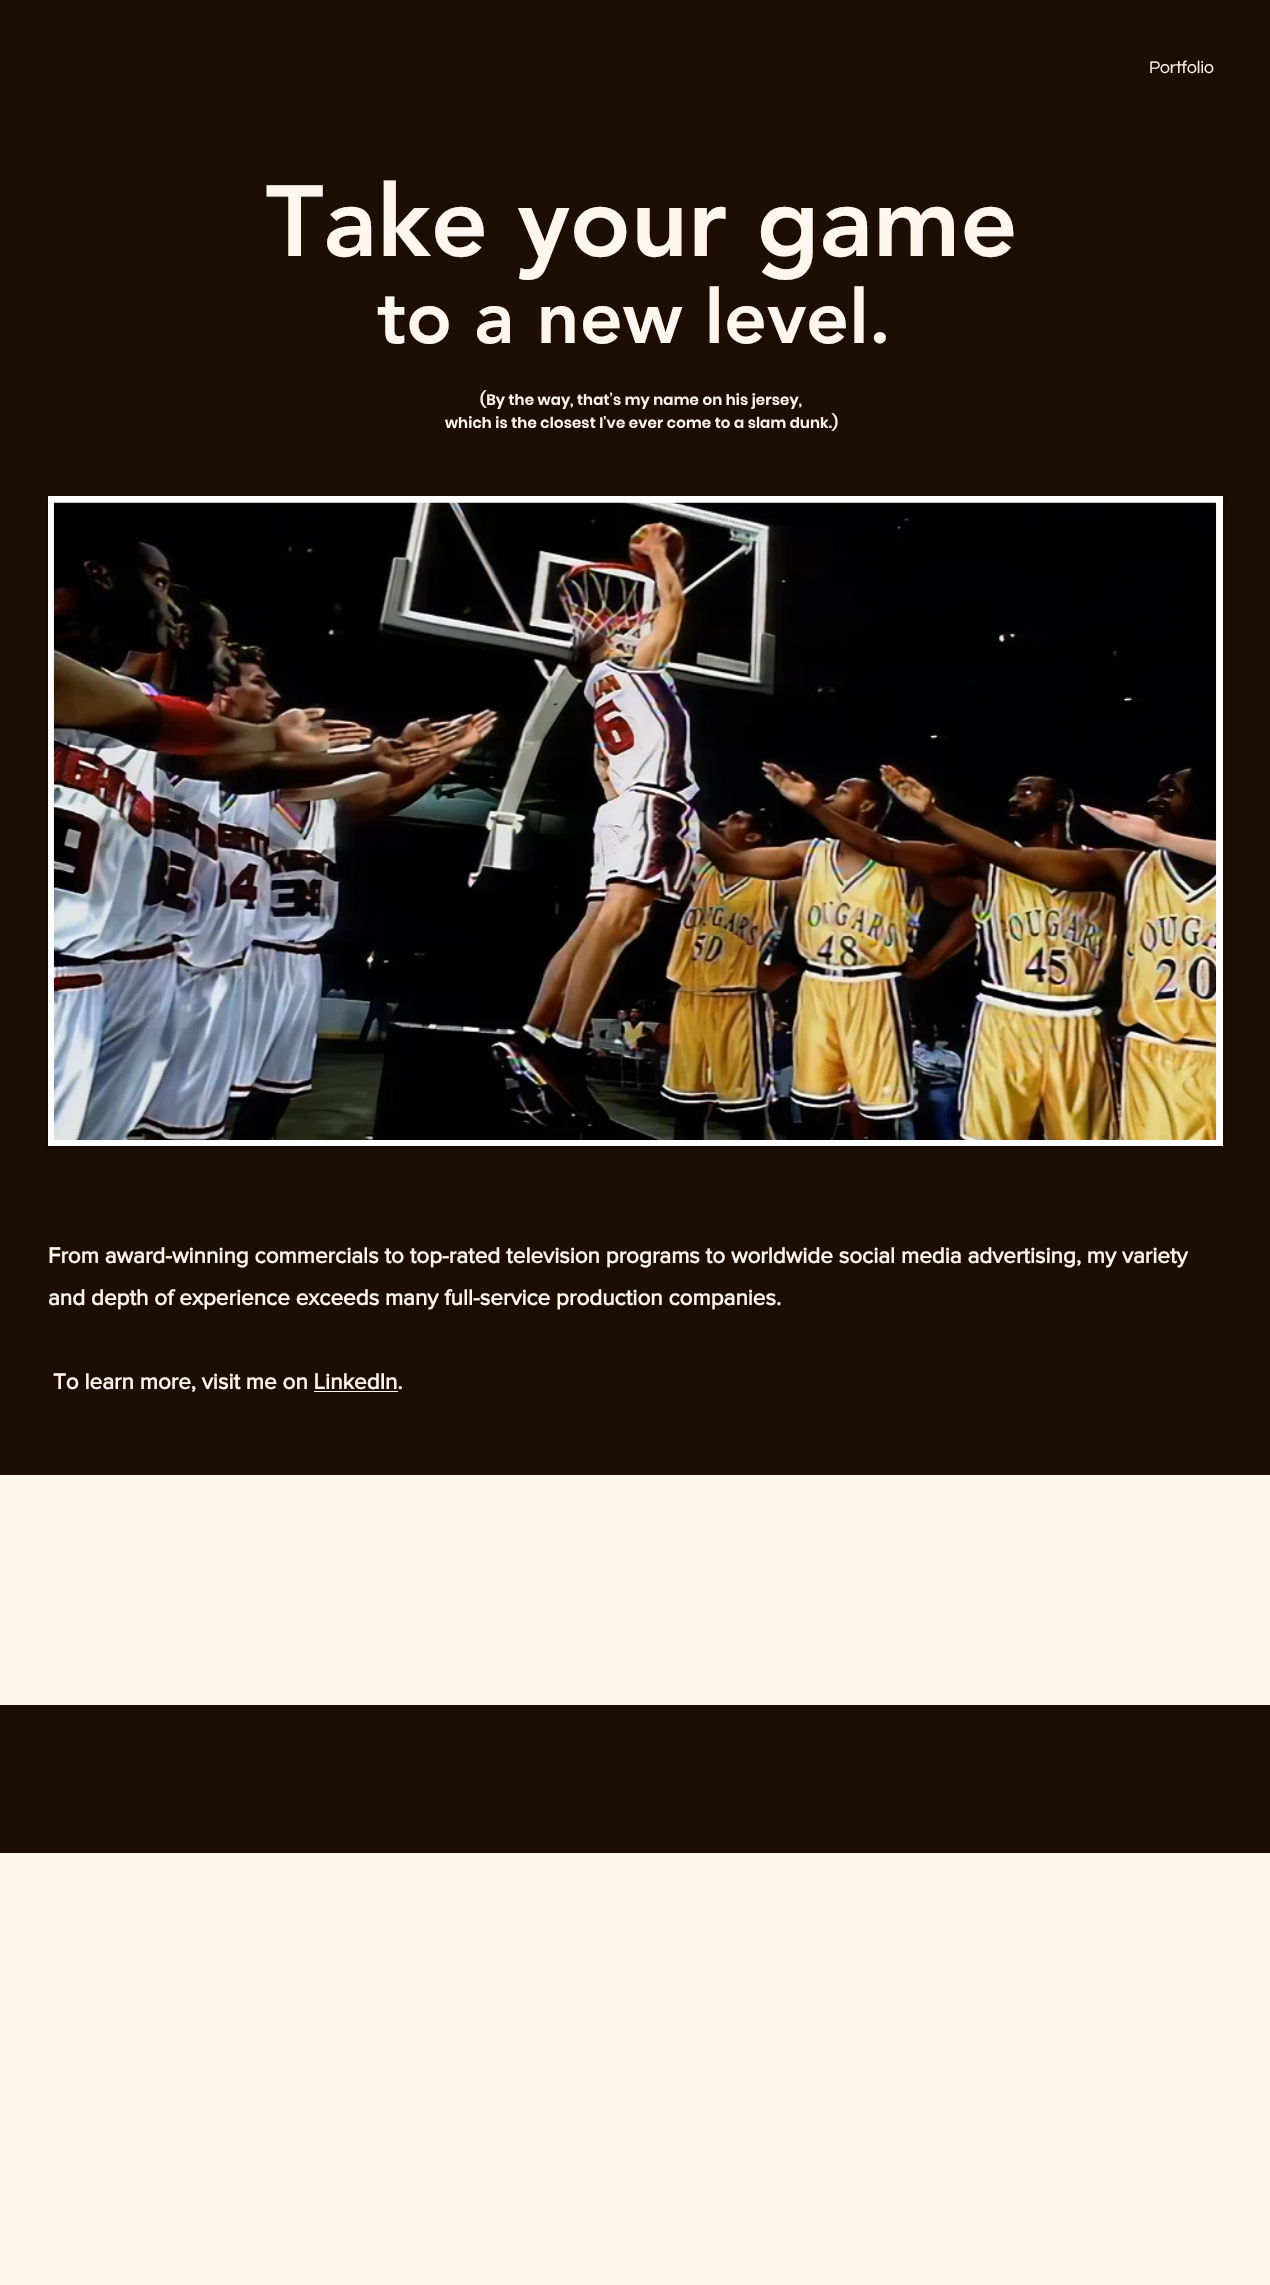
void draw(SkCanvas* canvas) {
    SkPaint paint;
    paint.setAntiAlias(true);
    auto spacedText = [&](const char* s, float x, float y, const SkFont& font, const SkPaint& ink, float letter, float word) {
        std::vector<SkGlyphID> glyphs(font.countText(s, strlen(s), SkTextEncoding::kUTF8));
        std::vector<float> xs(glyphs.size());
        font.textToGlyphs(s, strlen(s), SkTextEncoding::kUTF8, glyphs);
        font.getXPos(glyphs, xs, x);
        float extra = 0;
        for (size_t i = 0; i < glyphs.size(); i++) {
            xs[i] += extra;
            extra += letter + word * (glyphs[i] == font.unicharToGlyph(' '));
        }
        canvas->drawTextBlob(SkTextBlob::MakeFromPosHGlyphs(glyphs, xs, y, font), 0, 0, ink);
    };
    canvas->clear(0xFFFFF6EF);
    paint.setColor(0xFF1D0E03);
    canvas->drawRect(SkRect::MakeXYWH(0, 0, 1270, 1475), paint);
    SkFont font1(fontMgr->matchFamilyStyle("Questrial", SkFontStyle::Normal()), 17.5f);
    font1.setSubpixel(true);
    paint.setColor(0xFFFFF6EF);
    canvas->drawString("Portfolio", 1149, 73, font1, paint);
    SkFont font2(fontMgr->matchFamilyStyle("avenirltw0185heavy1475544", SkFontStyle(900, SkFontStyle::kNormal_Width, SkFontStyle::kUpright_Slant)), 100);
    font2.setSubpixel(true);
    canvas->drawString("Take your game", 266, 256, font2, paint);
    SkFont font3(fontMgr->matchFamilyStyle("avenirltw0185heavy1475544", SkFontStyle(900, SkFontStyle::kNormal_Width, SkFontStyle::kUpright_Slant)), 75);
    font3.setSubpixel(true);
    canvas->drawString("to a new level.", 377, 343, font3, paint);
    SkFont font4(fontMgr->matchFamilyStyle("Poppins", SkFontStyle(600, SkFontStyle::kNormal_Width, SkFontStyle::kUpright_Slant)), 15);
    font4.setSubpixel(true);
    spacedText("(By the way, that’s my name on his jersey,", 480, 405, font4, paint, 0.15f, 0);
    spacedText("which is the closest I've ever come to a slam dunk.)", 445, 428, font4, paint, 0.15f, 0);
    paint.setColor(0x66000000);
    paint.setMaskFilter(SkMaskFilter::MakeBlur(kNormal_SkBlurStyle, 2.5f));
    canvas->drawRect(SkRect::MakeXYWH(48, 498, 1175, 650), paint);
    paint.setMaskFilter(nullptr);
    paint.setColor(0xFFFFFFFF);
    canvas->drawRect(SkRect::MakeXYWH(48, 496, 1175, 650), paint);
    canvas->drawImageRect(SkImages::DeferredFromEncodedData(SkData::MakeFromFileName("img1.png")), SkRect::MakeXYWH(53, 502, 1164, 638), SkSamplingOptions());
    SkFont font5(fontMgr->matchFamilyStyle("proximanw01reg", SkFontStyle::Bold()), 22.5f);
    font5.setSubpixel(true);
    paint.setColor(0xFFFFF6EF);
    canvas->drawString("From award-winning commercials to top-rated television programs to worldwide social media advertising, my variety", 48, 1263, font5, paint);
    canvas->drawString("and depth of experience exceeds many full-service production companies.", 48, 1305, font5, paint);
    canvas->drawString("To learn more, visit me on LinkedIn.", 53, 1389, font5, paint);
    canvas->drawRect(SkRect::MakeXYWH(314, 1391, 84, 1), paint);
    paint.setColor(0xFF1D0E03);
    canvas->drawRect(SkRect::MakeXYWH(0, 1705, 1270, 148), paint);
}
